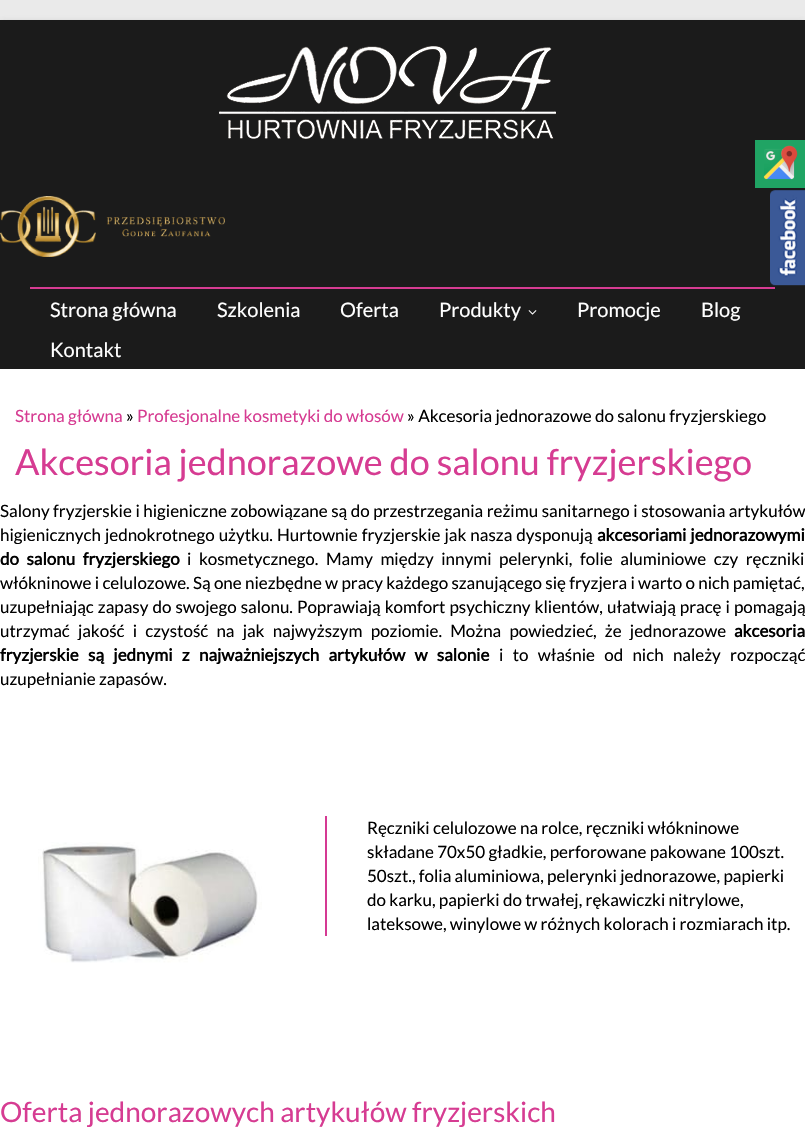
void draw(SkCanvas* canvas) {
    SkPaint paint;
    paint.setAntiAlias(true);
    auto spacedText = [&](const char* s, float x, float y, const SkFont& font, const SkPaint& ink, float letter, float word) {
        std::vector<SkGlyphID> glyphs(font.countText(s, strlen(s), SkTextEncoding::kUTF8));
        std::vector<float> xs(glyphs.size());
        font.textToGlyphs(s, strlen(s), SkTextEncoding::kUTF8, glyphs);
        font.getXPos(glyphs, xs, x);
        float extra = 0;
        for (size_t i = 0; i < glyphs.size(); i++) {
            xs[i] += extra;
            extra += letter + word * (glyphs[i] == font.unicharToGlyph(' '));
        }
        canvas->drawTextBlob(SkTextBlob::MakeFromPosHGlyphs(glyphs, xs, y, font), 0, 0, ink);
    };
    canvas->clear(0xFFEAEAEA);
    paint.setColor(0x4D646464);
    paint.setMaskFilter(SkMaskFilter::MakeBlur(kNormal_SkBlurStyle, 3));
    canvas->drawRect(SkRect::MakeXYWH(0, 22, 805, 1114), paint);
    paint.setMaskFilter(nullptr);
    paint.setColor(0xFF1B1B1B);
    canvas->drawRect(SkRect::MakeXYWH(0, 20, 805, 349), paint);
    paint.setColor(0xFF20A464);
    canvas->drawRect(SkRect::MakeXYWH(755, 140, 50, 48), paint);
    canvas->drawImageRect(SkImages::DeferredFromEncodedData(SkData::MakeFromFileName("img1.png")), SkRect::MakeXYWH(763, 145, 35, 35), SkSamplingOptions());
    canvas->drawImageRect(SkImages::DeferredFromEncodedData(SkData::MakeFromFileName("img2.png")), SkRect::MakeXYWH(770, 190, 35, 96), SkSamplingOptions());
    paint.setColor(0xFFFFFFFF);
    canvas->drawRect(SkRect::MakeXYWH(0, 369, 805, 758), paint);
    canvas->drawImageRect(SkImages::DeferredFromEncodedData(SkData::MakeFromFileName("img3.png")), SkRect::MakeXYWH(219, 46, 337, 93), SkSamplingOptions());
    canvas->drawImageRect(SkImages::DeferredFromEncodedData(SkData::MakeFromFileName("img4.png")), SkRect::MakeXYWH(0, 196, 225, 61), SkSamplingOptions());
    paint.setColor(0xFFD63C92);
    canvas->drawRect(SkRect::MakeXYWH(30, 287, 745, 2), paint);
    SkFont font1(fontMgr->matchFamilyStyle("Lato", SkFontStyle::Normal()), 20);
    font1.setSubpixel(true);
    paint.setColor(0xFFFFFFFF);
    canvas->drawString("Strona główna", 50, 317, font1, paint);
    canvas->drawString("Szkolenia", 217, 317, font1, paint);
    canvas->drawString("Oferta", 340, 317, font1, paint);
    canvas->drawString("Produkty", 439, 317, font1, paint);
    canvas->drawImageRect(SkImages::DeferredFromEncodedData(SkData::MakeFromFileName("img5.png")), SkRect::MakeXYWH(528, 310, 9, 5), SkSamplingOptions());
    canvas->drawString("Promocje", 577, 317, font1, paint);
    canvas->drawString("Blog", 701, 317, font1, paint);
    canvas->drawString("Kontakt", 50, 357, font1, paint);
    SkFont font2(fontMgr->matchFamilyStyle("Lato", SkFontStyle::Normal()), 17);
    font2.setSubpixel(true);
    paint.setColor(0xFFD63C92);
    canvas->drawString("Strona główna", 15, 422, font2, paint);
    paint.setColor(0xFF000000);
    canvas->drawString("»", 126, 422, font2, paint);
    paint.setColor(0xFFD63C92);
    canvas->drawString("Profesjonalne kosmetyki do włosów", 137, 422, font2, paint);
    paint.setColor(0xFF000000);
    canvas->drawString("» Akcesoria jednorazowe do salonu fryzjerskiego", 407, 422, font2, paint);
    SkFont font3(fontMgr->matchFamilyStyle("Lato", SkFontStyle::Normal()), 36);
    font3.setSubpixel(true);
    paint.setColor(0xFFD63C92);
    canvas->drawString("Akcesoria jednorazowe do salonu fryzjerskiego", 15, 475, font3, paint);
    paint.setColor(0xFF000000);
    spacedText("Salony fryzjerskie i higieniczne zobowiązane są do przestrzegania reżimu sanitarnego i stosowania artykułów", 0, 517, font2, paint, 0, 0.25f);
    spacedText("higienicznych jednokrotnego użytku. Hurtownie fryzjerskie jak nasza dysponują", 0, 541, font2, paint, 0, 0.75f);
    SkFont font4(fontMgr->matchFamilyStyle("Lato", SkFontStyle::Bold()), 17);
    font4.setSubpixel(true);
    spacedText("akcesoriami jednorazowymi", 597, 541, font4, paint, 0, 0.75f);
    spacedText("do salonu fryzjerskiego", 0, 565, font4, paint, 0, 4.25f);
    spacedText("i kosmetycznego. Mamy między innymi pelerynki, folie aluminiowe czy ręczniki", 187, 565, font2, paint, 0, 4.25f);
    canvas->drawString("włókninowe i celulozowe. Są one niezbędne w pracy każdego szanującego się fryzjera i warto o nich pamiętać,", 0, 589, font2, paint);
    spacedText("uzupełniając zapasy do swojego salonu. Poprawiają komfort psychiczny klientów, ułatwiają pracę i pomagają", 0, 613, font2, paint, 0, 0.75f);
    spacedText("utrzymać jakość i czystość na jak najwyższym poziomie. Można powiedzieć, że jednorazowe", 0, 637, font2, paint, 0, 4.9f);
    canvas->drawString("akcesoria", 734, 637, font4, paint);
    spacedText("fryzjerskie są jednymi z najważniejszych artykułów w salonie", 0, 661, font4, paint, 0, 6);
    spacedText("i to właśnie od nich należy rozpocząć", 499, 661, font2, paint, 0, 6);
    canvas->drawString("uzupełnianie zapasów.", 0, 685, font2, paint);
    canvas->drawImageRect(SkImages::DeferredFromEncodedData(SkData::MakeFromFileName("img6.png")), SkRect::MakeXYWH(38, 842, 224, 121), SkSamplingOptions());
    paint.setColor(0xFFD53993);
    canvas->drawRect(SkRect::MakeXYWH(325, 816, 2, 120), paint);
    paint.setColor(0xFF000000);
    canvas->drawString("Ręczniki celulozowe na rolce, ręczniki włókninowe", 367, 834, font2, paint);
    canvas->drawString("składane 70x50 gładkie, perforowane pakowane 100szt.", 367, 858, font2, paint);
    canvas->drawString("50szt., folia aluminiowa, pelerynki jednorazowe, papierki", 367, 882, font2, paint);
    canvas->drawString("do karku, papierki do trwałej, rękawiczki nitrylowe,", 367, 906, font2, paint);
    canvas->drawString("lateksowe, winylowe w różnych kolorach i rozmiarach itp.", 367, 930, font2, paint);
    SkFont font5(fontMgr->matchFamilyStyle("Lato", SkFontStyle::Normal()), 28);
    font5.setSubpixel(true);
    paint.setColor(0xFFD63C92);
    canvas->drawString("Oferta jednorazowych artykułów fryzjerskich", 0, 1122, font5, paint);
}
